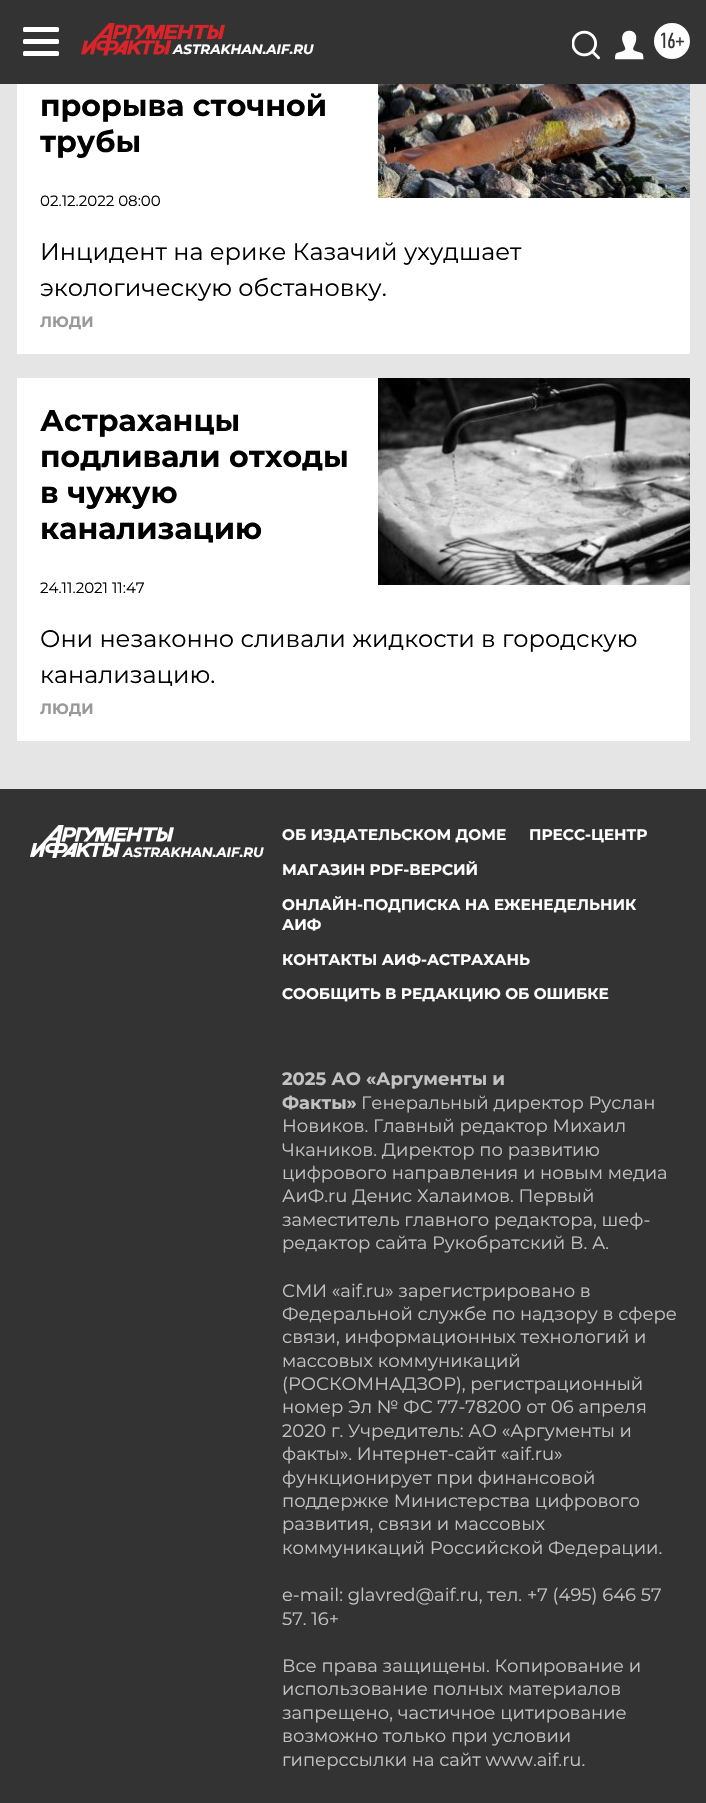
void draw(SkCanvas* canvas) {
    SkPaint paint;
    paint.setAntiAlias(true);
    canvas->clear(0xFFE5E5E5);
    paint.setColor(0xFF333333);
    canvas->drawRect(SkRect::MakeXYWH(0, 0, 706, 84), paint);
    paint.setColor(0xFFFFFFFF);
    canvas->drawRoundRect(SkRect::MakeXYWH(23, 27, 36, 5), 1.5f, 1.5f, paint);
    canvas->drawRoundRect(SkRect::MakeXYWH(23, 39, 36, 5), 1.5f, 1.5f, paint);
    canvas->drawRoundRect(SkRect::MakeXYWH(23, 51, 36, 5), 1.5f, 1.5f, paint);
    canvas->drawImageRect(SkImages::DeferredFromEncodedData(SkData::MakeFromFileName("img1.png")), SkRect::MakeXYWH(81, 23, 144, 33), SkSamplingOptions());
    SkFont font1(fontMgr->matchFamilyStyle("Montserrat", SkFontStyle::BoldItalic()), 13.5f);
    font1.setSubpixel(true);
    canvas->drawString("ASTRAKHAN.AIF.RU", 173, 54, font1, paint);
    canvas->drawImageRect(SkImages::DeferredFromEncodedData(SkData::MakeFromFileName("img2.png")), SkRect::MakeXYWH(572, 30, 28, 30), SkSamplingOptions());
    canvas->drawImageRect(SkImages::DeferredFromEncodedData(SkData::MakeFromFileName("img3.png")), SkRect::MakeXYWH(615, 30, 29, 30), SkSamplingOptions());
    canvas->drawCircle(672, 41, 18, paint);
    SkFont font2(fontMgr->matchFamilyStyle("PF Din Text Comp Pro", SkFontStyle::Normal()), 22);
    font2.setSubpixel(true);
    paint.setColor(0xFF333333);
    canvas->drawString("16+", 659, 48, font2, paint);
    paint.setColor(0xFFFFFFFF);
    canvas->drawRect(SkRect::MakeXYWH(17, 84, 673, 270), paint);
    SkFont font3(fontMgr->matchFamilyStyle("Montserrat", SkFontStyle::Bold()), 30);
    font3.setSubpixel(true);
    paint.setColor(0xFF000000);
    canvas->drawString("прорыва сточной", 40, 116, font3, paint);
    canvas->drawString("трубы", 40, 152, font3, paint);
    SkFont font4(fontMgr->matchFamilyStyle("Montserrat", SkFontStyle::Normal()), 15);
    font4.setSubpixel(true);
    canvas->drawString("02.12.2022 08:00", 40, 206, font4, paint);
    SkFont font5(fontMgr->matchFamilyStyle("Montserrat", SkFontStyle::Normal()), 24);
    font5.setSubpixel(true);
    canvas->drawString("Инцидент на ерике Казачий ухудшает", 40, 260, font5, paint);
    canvas->drawString("экологическую обстановку.", 40, 296, font5, paint);
    canvas->drawImageRect(SkImages::DeferredFromEncodedData(SkData::MakeFromFileName("img4.png")), SkRect::MakeXYWH(378, 84, 312, 114), SkSamplingOptions());
    SkFont font6(fontMgr->matchFamilyStyle("Montserrat", SkFontStyle::Bold()), 15);
    font6.setSubpixel(true);
    paint.setColor(0xFF999999);
    canvas->drawString("ЛЮДИ", 40, 327, font6, paint);
    paint.setColor(0xFFFFFFFF);
    canvas->drawRect(SkRect::MakeXYWH(17, 378, 673, 363), paint);
    canvas->drawImageRect(SkImages::DeferredFromEncodedData(SkData::MakeFromFileName("img5.png")), SkRect::MakeXYWH(378, 378, 312, 207), SkSamplingOptions());
    paint.setColor(0xFF000000);
    canvas->drawString("Астраханцы", 40, 431, font3, paint);
    canvas->drawString("подливали отходы", 40, 467, font3, paint);
    canvas->drawString("в чужую", 40, 503, font3, paint);
    canvas->drawString("канализацию", 40, 539, font3, paint);
    canvas->drawString("24.11.2021 11:47", 40, 593, font4, paint);
    canvas->drawString("Они незаконно сливали жидкости в городскую", 40, 647, font5, paint);
    canvas->drawString("канализацию.", 40, 683, font5, paint);
    paint.setColor(0xFF999999);
    canvas->drawString("ЛЮДИ", 40, 714, font6, paint);
    paint.setColor(0xFF333333);
    canvas->drawRect(SkRect::MakeXYWH(0, 789, 706, 1014), paint);
    canvas->drawImageRect(SkImages::DeferredFromEncodedData(SkData::MakeFromFileName("img6.png")), SkRect::MakeXYWH(30, 825, 144, 33), SkSamplingOptions());
    paint.setColor(0xFFFFFFFF);
    canvas->drawString("ASTRAKHAN.AIF.RU", 123, 857, font1, paint);
    SkFont font7(fontMgr->matchFamilyStyle("Montserrat", SkFontStyle::Bold()), 15.3f);
    font7.setSubpixel(true);
    canvas->drawString("ОБ ИЗДАТЕЛЬСКОМ ДОМЕ", 282, 840, font7, paint);
    canvas->drawString("ПРЕСС-ЦЕНТР", 529, 840, font7, paint);
    canvas->drawString("МАГАЗИН PDF-ВЕРСИЙ", 282, 875, font7, paint);
    canvas->drawString("ОНЛАЙН-ПОДПИСКА НА ЕЖЕНЕДЕЛЬНИК", 282, 910, font7, paint);
    canvas->drawString("АИФ", 282, 930, font7, paint);
    canvas->drawString("КОНТАКТЫ АИФ-АСТРАХАНЬ", 282, 965, font7, paint);
    canvas->drawString("СООБЩИТЬ В РЕДАКЦИЮ ОБ ОШИБКЕ", 282, 999, font7, paint);
    SkFont font8(fontMgr->matchFamilyStyle("Montserrat", SkFontStyle::Bold()), 18);
    font8.setSubpixel(true);
    paint.setColor(0xFFC2C2C2);
    canvas->drawString("2025 АО «Аргументы и", 282, 1085, font8, paint);
    canvas->drawString("Факты»", 282, 1109, font8, paint);
    SkFont font9(fontMgr->matchFamilyStyle("Montserrat", SkFontStyle::Normal()), 18);
    font9.setSubpixel(true);
    canvas->drawString("Генеральный директор Руслан", 361, 1109, font9, paint);
    canvas->drawString("Новиков. Главный редактор Михаил", 282, 1132, font9, paint);
    canvas->drawString("Чкаников. Директор по развитию", 282, 1156, font9, paint);
    canvas->drawString("цифрового направления и новым медиа", 282, 1179, font9, paint);
    canvas->drawString("АиФ.ru Денис Халаимов. Первый", 282, 1202, font9, paint);
    canvas->drawString("заместитель главного редактора, шеф-", 282, 1226, font9, paint);
    canvas->drawString("редактор сайта Рукобратский В. А.", 282, 1249, font9, paint);
    canvas->drawString("СМИ «aif.ru» зарегистрировано в", 282, 1297, font9, paint);
    canvas->drawString("Федеральной службе по надзору в сфере", 282, 1320, font9, paint);
    canvas->drawString("связи, информационных технологий и", 282, 1343, font9, paint);
    canvas->drawString("массовых коммуникаций", 282, 1367, font9, paint);
    canvas->drawString("(РОСКОМНАДЗОР), регистрационный", 282, 1390, font9, paint);
    canvas->drawString("номер Эл № ФС 77-78200 от 06 апреля", 282, 1413, font9, paint);
    canvas->drawString("2020 г. Учредитель: АО «Аргументы и", 282, 1437, font9, paint);
    canvas->drawString("факты». Интернет-сайт «aif.ru»", 282, 1460, font9, paint);
    canvas->drawString("функционирует при финансовой", 282, 1484, font9, paint);
    canvas->drawString("поддержке Министерства цифрового", 282, 1507, font9, paint);
    canvas->drawString("развития, связи и массовых", 282, 1530, font9, paint);
    canvas->drawString("коммуникаций Российской Федерации.", 282, 1554, font9, paint);
    canvas->drawString("e-mail: glavred@aif.ru, тел. +7 (495) 646 57", 282, 1601, font9, paint);
    canvas->drawString("57. 16+", 282, 1625, font9, paint);
    canvas->drawString("Все права защищены. Копирование и", 282, 1672, font9, paint);
    canvas->drawString("использование полных материалов", 282, 1695, font9, paint);
    canvas->drawString("запрещено, частичное цитирование", 282, 1719, font9, paint);
    canvas->drawString("возможно только при условии", 282, 1742, font9, paint);
    canvas->drawString("гиперссылки на сайт www.aif.ru.", 282, 1766, font9, paint);
}
